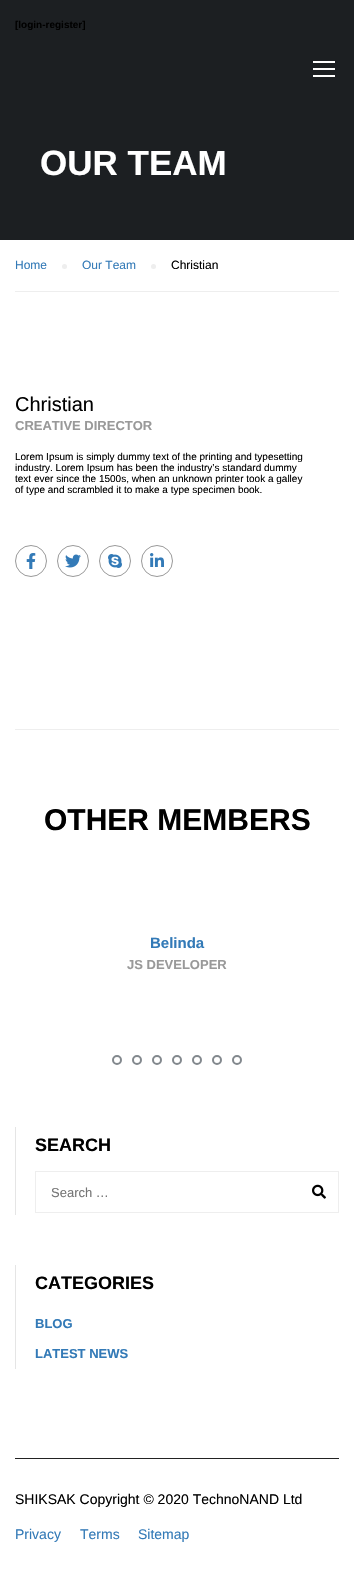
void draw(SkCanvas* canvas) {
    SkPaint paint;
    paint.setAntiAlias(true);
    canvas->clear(0xFFFFFFFF);
    paint.setColor(0xFF1C1F22);
    canvas->drawRect(SkRect::MakeXYWH(0, 0, 354, 240), paint);
    SkFont font1(fontMgr->matchFamilyStyle("Liberation Sans", SkFontStyle::Bold()), 10);
    font1.setSubpixel(true);
    paint.setColor(0xFF000000);
    canvas->drawString("[login-register]", 15, 28, font1, paint);
    paint.setColor(0xFFFFFFFF);
    canvas->drawRect(SkRect::MakeXYWH(313, 61, 22, 2), paint);
    canvas->drawRect(SkRect::MakeXYWH(313, 68, 22, 2), paint);
    canvas->drawRect(SkRect::MakeXYWH(313, 75, 22, 2), paint);
    SkFont font2(fontMgr->matchFamilyStyle("Liberation Sans", SkFontStyle::Bold()), 35);
    font2.setSubpixel(true);
    canvas->drawString("OUR TEAM", 40, 175, font2, paint);
    paint.setColor(0xFFEEEEEE);
    canvas->drawRect(SkRect::MakeXYWH(15, 291, 324, 1), paint);
    SkFont font3(fontMgr->matchFamilyStyle("Liberation Sans", SkFontStyle::Normal()), 12);
    font3.setSubpixel(true);
    paint.setColor(0xFF337AB7);
    canvas->drawString("Home", 15, 269, font3, paint);
    paint.setColor(0xFFEEEEEE);
    canvas->drawCircle(64.5f, 266.5f, 2.5f, paint);
    paint.setColor(0xFF337AB7);
    canvas->drawString("Our Team", 82, 269, font3, paint);
    paint.setColor(0xFFEEEEEE);
    canvas->drawCircle(153.5f, 266.5f, 2.5f, paint);
    paint.setColor(0xFF000000);
    canvas->drawString("Christian", 171, 269, font3, paint);
    paint.setColor(0xFFEEEEEE);
    canvas->drawRect(SkRect::MakeXYWH(15, 729, 324, 1), paint);
    SkFont font4(fontMgr->matchFamilyStyle("Liberation Sans", SkFontStyle::Normal()), 20);
    font4.setSubpixel(true);
    paint.setColor(0xFF000000);
    canvas->drawString("Christian", 15, 411, font4, paint);
    SkFont font5(fontMgr->matchFamilyStyle("Liberation Sans", SkFontStyle::Bold()), 13);
    font5.setSubpixel(true);
    paint.setColor(0xFF999999);
    canvas->drawString("CREATIVE DIRECTOR", 15, 430, font5, paint);
    SkFont font6(fontMgr->matchFamilyStyle("Liberation Sans", SkFontStyle::Normal()), 10);
    font6.setSubpixel(true);
    paint.setColor(0xFF000000);
    canvas->drawString("Lorem Ipsum is simply dummy text of the printing and typesetting", 15, 460, font6, paint);
    canvas->drawString("industry. Lorem Ipsum has been the industry’s standard dummy", 15, 471, font6, paint);
    canvas->drawString("text ever since the 1500s, when an unknown printer took a galley", 15, 482, font6, paint);
    canvas->drawString("of type and scrambled it to make a type specimen book.", 15, 493, font6, paint);
    paint.setStyle(SkPaint::kStroke_Style);
    paint.setStrokeWidth(1);
    paint.setColor(0xFF999999);
    canvas->drawCircle(31, 561, 15.5f, paint);
    canvas->drawImageRect(SkImages::DeferredFromEncodedData(SkData::MakeFromFileName("img1.png")), SkRect::MakeXYWH(26, 553, 10, 16), SkSamplingOptions());
    canvas->drawCircle(73, 561, 15.5f, paint);
    canvas->drawImageRect(SkImages::DeferredFromEncodedData(SkData::MakeFromFileName("img2.png")), SkRect::MakeXYWH(65, 554, 16, 14), SkSamplingOptions());
    canvas->drawCircle(115, 561, 15.5f, paint);
    canvas->drawImageRect(SkImages::DeferredFromEncodedData(SkData::MakeFromFileName("img3.png")), SkRect::MakeXYWH(108, 554, 14, 14), SkSamplingOptions());
    canvas->drawCircle(157, 561, 15.5f, paint);
    canvas->drawImageRect(SkImages::DeferredFromEncodedData(SkData::MakeFromFileName("img4.png")), SkRect::MakeXYWH(150, 553, 14, 14), SkSamplingOptions());
    SkFont font7(fontMgr->matchFamilyStyle("Liberation Sans", SkFontStyle::Bold()), 30);
    font7.setSubpixel(true);
    paint.setStyle(SkPaint::kFill_Style);
    paint.setColor(0xFF000000);
    canvas->drawString("OTHER MEMBERS", 44, 830, font7, paint);
    SkFont font8(fontMgr->matchFamilyStyle("Liberation Sans", SkFontStyle::Bold()), 15);
    font8.setSubpixel(true);
    paint.setColor(0xFF337AB7);
    canvas->drawString("Belinda", 150, 948, font8, paint);
    paint.setColor(0xFF999999);
    canvas->drawString("JS DEVELOPER", 127, 969, font5, paint);
    paint.setStyle(SkPaint::kStroke_Style);
    paint.setStrokeWidth(2);
    paint.setColor(0xFF82888D);
    canvas->drawCircle(117, 1060, 4, paint);
    canvas->drawCircle(137, 1060, 4, paint);
    canvas->drawCircle(157, 1060, 4, paint);
    canvas->drawCircle(177, 1060, 4, paint);
    canvas->drawCircle(197, 1060, 4, paint);
    canvas->drawCircle(217, 1060, 4, paint);
    canvas->drawCircle(237, 1060, 4, paint);
    paint.setStyle(SkPaint::kFill_Style);
    paint.setColor(0xFFE5E5E5);
    canvas->drawRect(SkRect::MakeXYWH(15, 1127, 1, 88), paint);
    SkFont font9(fontMgr->matchFamilyStyle("Liberation Sans", SkFontStyle::Bold()), 18);
    font9.setSubpixel(true);
    paint.setColor(0xFF000000);
    canvas->drawString("SEARCH", 35, 1151, font9, paint);
    paint.setStyle(SkPaint::kStroke_Style);
    paint.setStrokeWidth(1);
    paint.setColor(0xFFEEEEEE);
    canvas->drawRect(SkRect::MakeXYWH(35.5f, 1171.5f, 303, 41), paint);
    SkFont font10(fontMgr->matchFamilyStyle("Liberation Sans", SkFontStyle::Normal()), 13);
    font10.setSubpixel(true);
    paint.setStyle(SkPaint::kFill_Style);
    paint.setColor(0xFF757575);
    canvas->drawString("Search …", 51, 1197, font10, paint);
    canvas->drawImageRect(SkImages::DeferredFromEncodedData(SkData::MakeFromFileName("img5.png")), SkRect::MakeXYWH(312, 1184, 14, 15), SkSamplingOptions());
    paint.setColor(0xFFE5E5E5);
    canvas->drawRect(SkRect::MakeXYWH(15, 1265, 1, 104), paint);
    paint.setColor(0xFF000000);
    canvas->drawString("CATEGORIES", 35, 1289, font9, paint);
    paint.setColor(0xFF337AB7);
    canvas->drawString("BLOG", 35, 1328, font5, paint);
    canvas->drawString("LATEST NEWS", 35, 1358, font5, paint);
    paint.setColor(0xFF222222);
    canvas->drawRect(SkRect::MakeXYWH(15, 1458, 324, 1), paint);
    SkFont font11(fontMgr->matchFamilyStyle("Liberation Sans", SkFontStyle::Normal()), 14);
    font11.setSubpixel(true);
    paint.setColor(0xFF000000);
    canvas->drawString("SHIKSAK Copyright © 2020 TechnoNAND Ltd", 15, 1504, font11, paint);
    paint.setColor(0xFF337AB7);
    canvas->drawString("Privacy", 15, 1539, font11, paint);
    canvas->drawString("Terms", 80, 1539, font11, paint);
    canvas->drawString("Sitemap", 138, 1539, font11, paint);
}
